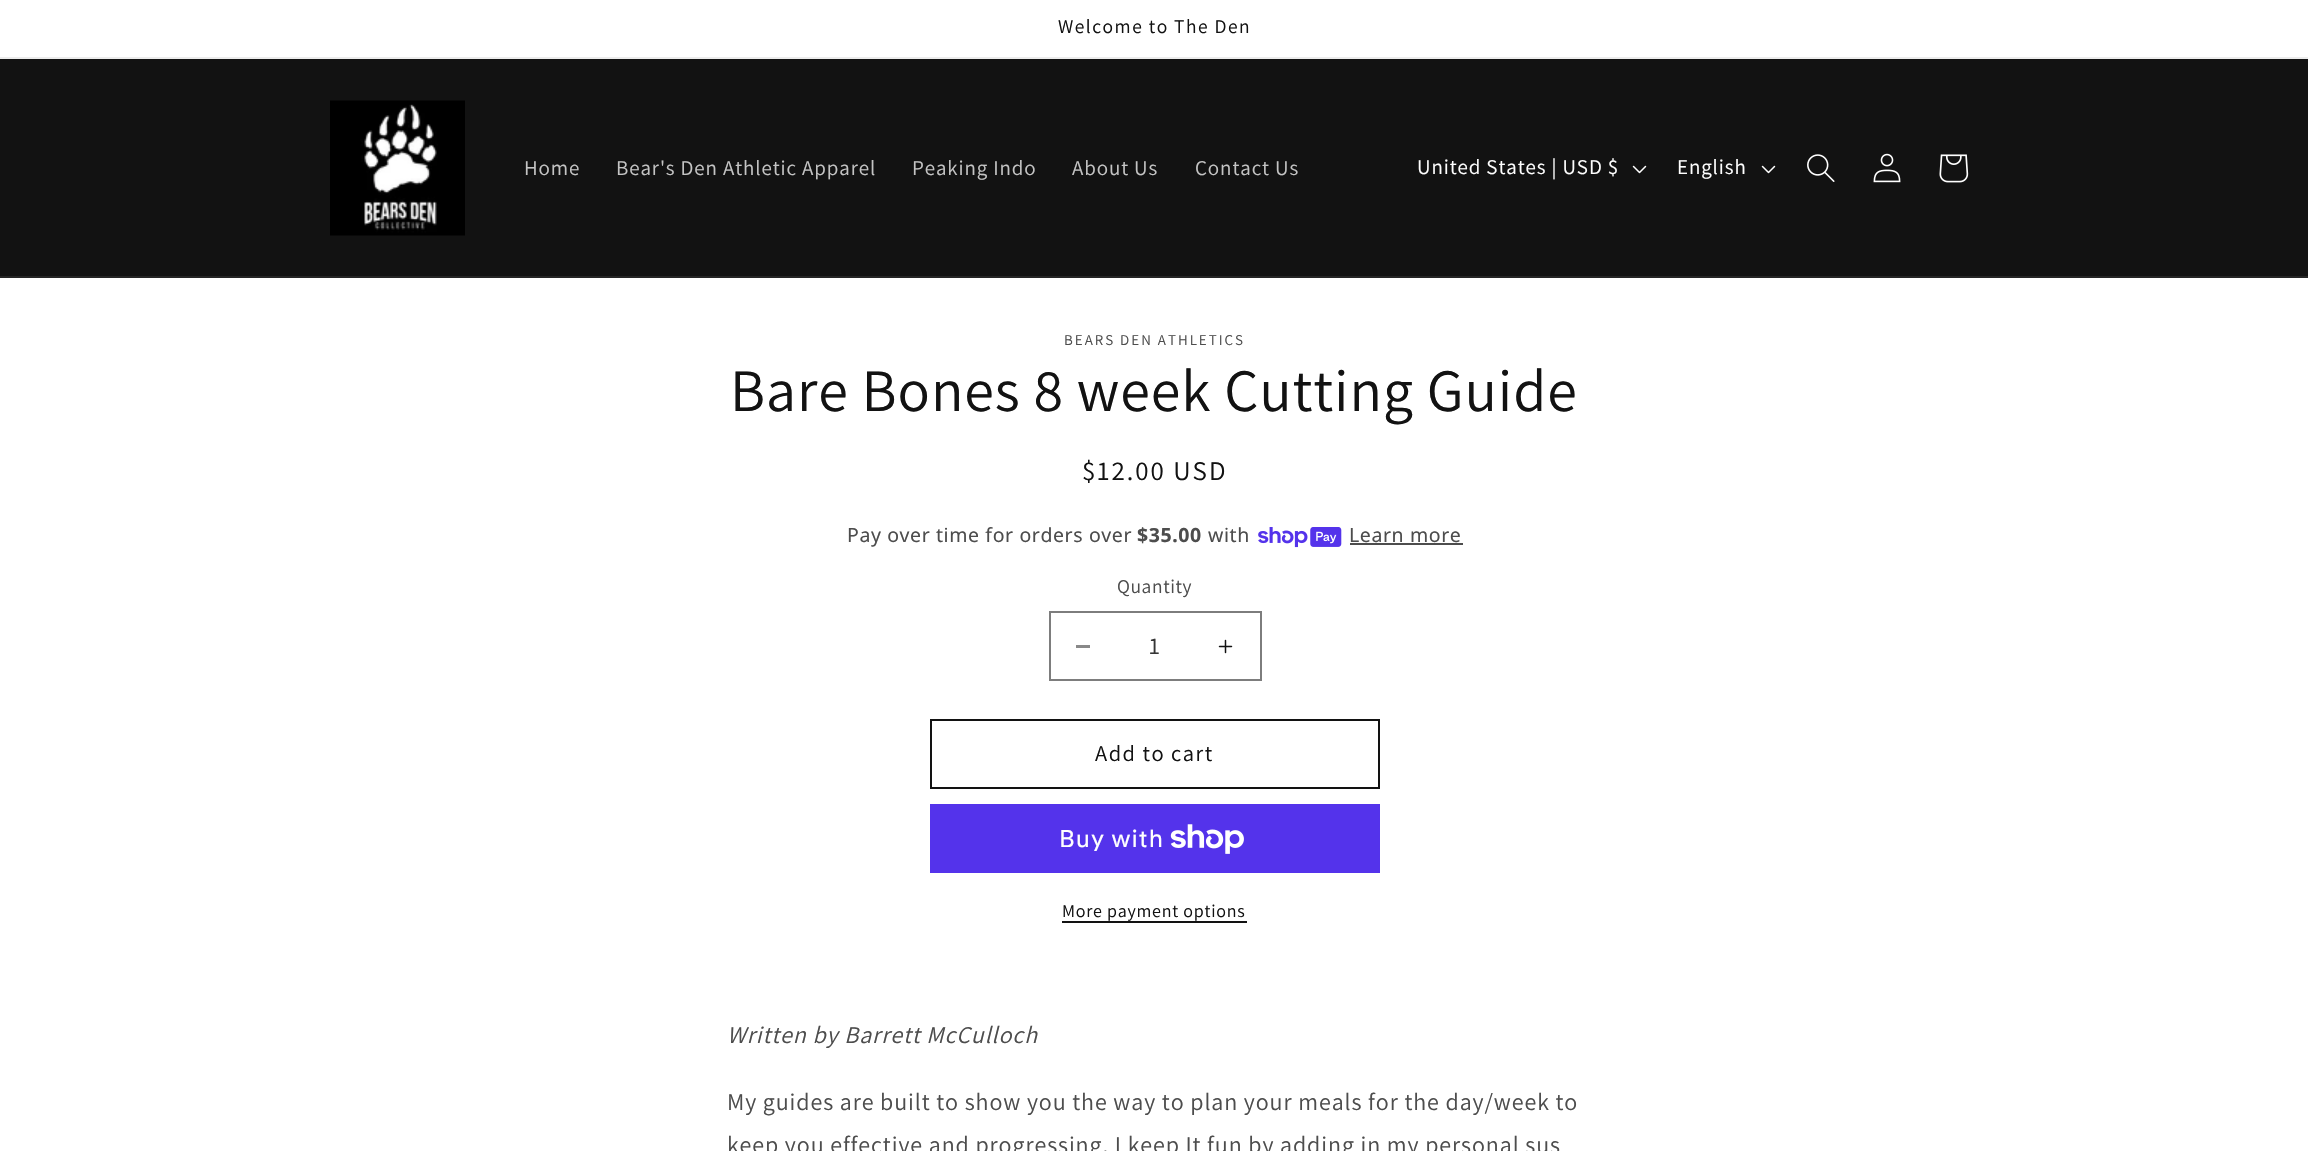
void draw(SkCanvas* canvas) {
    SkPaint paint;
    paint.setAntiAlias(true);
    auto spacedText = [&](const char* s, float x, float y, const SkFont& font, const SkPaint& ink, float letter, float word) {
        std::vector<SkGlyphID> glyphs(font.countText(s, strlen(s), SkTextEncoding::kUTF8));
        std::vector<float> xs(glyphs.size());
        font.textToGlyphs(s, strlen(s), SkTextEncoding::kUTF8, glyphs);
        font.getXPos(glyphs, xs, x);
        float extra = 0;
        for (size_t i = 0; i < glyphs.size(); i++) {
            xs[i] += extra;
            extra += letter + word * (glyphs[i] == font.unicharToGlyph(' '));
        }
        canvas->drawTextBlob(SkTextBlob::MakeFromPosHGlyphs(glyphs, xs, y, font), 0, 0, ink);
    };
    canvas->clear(0xFFFFFFFF);
    paint.setColor(0xFFECECEC);
    canvas->drawRect(SkRect::MakeXYWH(0, 57, 2308, 2), paint);
    SkFont font1(fontMgr->matchFamilyStyle("Assistant", SkFontStyle::Normal()), 19.5f);
    font1.setSubpixel(true);
    paint.setColor(0xFF121212);
    spacedText("Welcome to The Den", 1058, 33, font1, paint, 1.5f, 0);
    canvas->drawRect(SkRect::MakeXYWH(0, 59, 2308, 217), paint);
    paint.setColor(0xFF252525);
    canvas->drawRect(SkRect::MakeXYWH(0, 276, 2308, 2), paint);
    canvas->drawImageRect(SkImages::DeferredFromEncodedData(SkData::MakeFromFileName("img1.png")), SkRect::MakeXYWH(330, 100, 135, 136), SkSamplingOptions());
    SkFont font2(fontMgr->matchFamilyStyle("Assistant", SkFontStyle::Normal()), 21);
    font2.setSubpixel(true);
    paint.setColor(0xFFC4C4C4);
    spacedText("Home", 524, 175, font2, paint, 0.9f, 0);
    spacedText("Bear's Den Athletic Apparel", 616, 175, font2, paint, 0.9f, 0);
    spacedText("Peaking Indo", 912, 175, font2, paint, 0.9f, 0);
    spacedText("About Us", 1072, 175, font2, paint, 0.9f, 0);
    spacedText("Contact Us", 1195, 175, font2, paint, 0.9f, 0);
    paint.setColor(0xFFFFFFFF);
    spacedText("United States | USD $", 1417, 174, font2, paint, 0.9f, 0);
    canvas->drawImageRect(SkImages::DeferredFromEncodedData(SkData::MakeFromFileName("img2.png")), SkRect::MakeXYWH(1632, 165, 15, 9), SkSamplingOptions());
    spacedText("English", 1677, 174, font2, paint, 0.9f, 0);
    canvas->drawImageRect(SkImages::DeferredFromEncodedData(SkData::MakeFromFileName("img2.png")), SkRect::MakeXYWH(1761, 165, 15, 9), SkSamplingOptions());
    canvas->drawImageRect(SkImages::DeferredFromEncodedData(SkData::MakeFromFileName("img3.png")), SkRect::MakeXYWH(1807, 154, 28, 28), SkSamplingOptions());
    canvas->drawImageRect(SkImages::DeferredFromEncodedData(SkData::MakeFromFileName("img4.png")), SkRect::MakeXYWH(1873, 153, 28, 30), SkSamplingOptions());
    canvas->drawImageRect(SkImages::DeferredFromEncodedData(SkData::MakeFromFileName("img5.png")), SkRect::MakeXYWH(1939, 154, 30, 29), SkSamplingOptions());
    SkFont font3(fontMgr->matchFamilyStyle("Assistant", SkFontStyle::Normal()), 15);
    font3.setSubpixel(true);
    paint.setColor(0xFF4D4D4D);
    spacedText("BEARS DEN ATHLETICS", 1064, 345, font3, paint, 2, 0);
    SkFont font4(fontMgr->matchFamilyStyle("Assistant", SkFontStyle::Normal()), 60);
    font4.setSubpixel(true);
    paint.setColor(0xFF121212);
    spacedText("Bare Bones 8 week Cutting Guide", 730, 411, font4, paint, 0.9f, 0);
    SkFont font5(fontMgr->matchFamilyStyle("Assistant", SkFontStyle::Normal()), 27);
    font5.setSubpixel(true);
    spacedText("$12.00 USD", 1082, 480, font5, paint, 2, 0);
    SkFont font6(fontMgr->matchFamilyStyle("Noto Sans", SkFontStyle::Normal()), 19.5f);
    font6.setSubpixel(true);
    paint.setColor(0xFF4D4D4D);
    spacedText("Pay over time for orders over", 847, 542, font6, paint, 0.6f, 0);
    SkFont font7(fontMgr->matchFamilyStyle("Noto Sans", SkFontStyle::Bold()), 19.5f);
    font7.setSubpixel(true);
    spacedText("$35.00", 1137, 542, font7, paint, 0.6f, 0);
    spacedText("with", 1208, 542, font6, paint, 0.6f, 0);
    canvas->drawImageRect(SkImages::DeferredFromEncodedData(SkData::MakeFromFileName("img6.png")), SkRect::MakeXYWH(1258, 527, 84, 21), SkSamplingOptions());
    spacedText("Learn more", 1349, 542, font6, paint, 0.6f, 0);
    canvas->drawRect(SkRect::MakeXYWH(1350, 543, 113, 2), paint);
    spacedText("Quantity", 1117, 593, font1, paint, 0.6f, 0);
    paint.setColor(0xFF898989);
    canvas->drawRect(SkRect::MakeXYWH(1076, 645, 14, 3), paint);
    canvas->drawImageRect(SkImages::DeferredFromEncodedData(SkData::MakeFromFileName("img7.png")), SkRect::MakeXYWH(1218, 639, 15, 15), SkSamplingOptions());
    paint.setStyle(SkPaint::kStroke_Style);
    paint.setStrokeWidth(2);
    paint.setColor(0xFF7D7D7D);
    canvas->drawRect(SkRect::MakeXYWH(1050, 612, 211, 68), paint);
    SkFont font8(fontMgr->matchFamilyStyle("Assistant", SkFontStyle::Normal()), 24);
    font8.setSubpixel(true);
    paint.setStyle(SkPaint::kFill_Style);
    paint.setColor(0xFF363636);
    canvas->drawString("1", 1149, 654, font8, paint);
    paint.setStyle(SkPaint::kStroke_Style);
    paint.setColor(0xFF121212);
    canvas->drawRect(SkRect::MakeXYWH(931, 720, 448, 68), paint);
    SkFont font9(fontMgr->matchFamilyStyle("Assistant", SkFontStyle::Normal()), 22.5f);
    font9.setSubpixel(true);
    paint.setStyle(SkPaint::kFill_Style);
    spacedText("Add to cart", 1095, 761, font9, paint, 1.5f, 0);
    paint.setColor(0xFF5433EB);
    canvas->drawRect(SkRect::MakeXYWH(930, 804, 450, 69), paint);
    SkFont font10(fontMgr->matchFamilyStyle("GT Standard", SkFontStyle::Normal()), 24);
    font10.setSubpixel(true);
    paint.setColor(0xFFFFFFFF);
    spacedText("Buy with", 1059, 847, font10, paint, 0.9f, 0);
    canvas->drawImageRect(SkImages::DeferredFromEncodedData(SkData::MakeFromFileName("img8.png")), SkRect::MakeXYWH(1170, 824, 74, 30), SkSamplingOptions());
    SkFont font11(fontMgr->matchFamilyStyle("Assistant", SkFontStyle::Normal()), 18);
    font11.setSubpixel(true);
    paint.setColor(0xFF121212);
    spacedText("More payment options", 1062, 917, font11, paint, 0.75f, 0);
    canvas->drawRect(SkRect::MakeXYWH(1062, 921, 185, 2), paint);
    SkFont font12(fontMgr->matchFamilyStyle("Assistant", SkFontStyle::Italic()), 24);
    font12.setSubpixel(true);
    paint.setColor(0xFF4D4D4D);
    spacedText("Written by Barrett McCulloch", 727, 1043, font12, paint, 0.9f, 0);
    spacedText("My guides are built to show you the way to plan your meals for the day/week to", 727, 1110, font8, paint, 0.9f, 0);
    spacedText("keep you effective and progressing. I keep It fun by adding in my personal sus", 727, 1153, font8, paint, 0.9f, 0);
}
